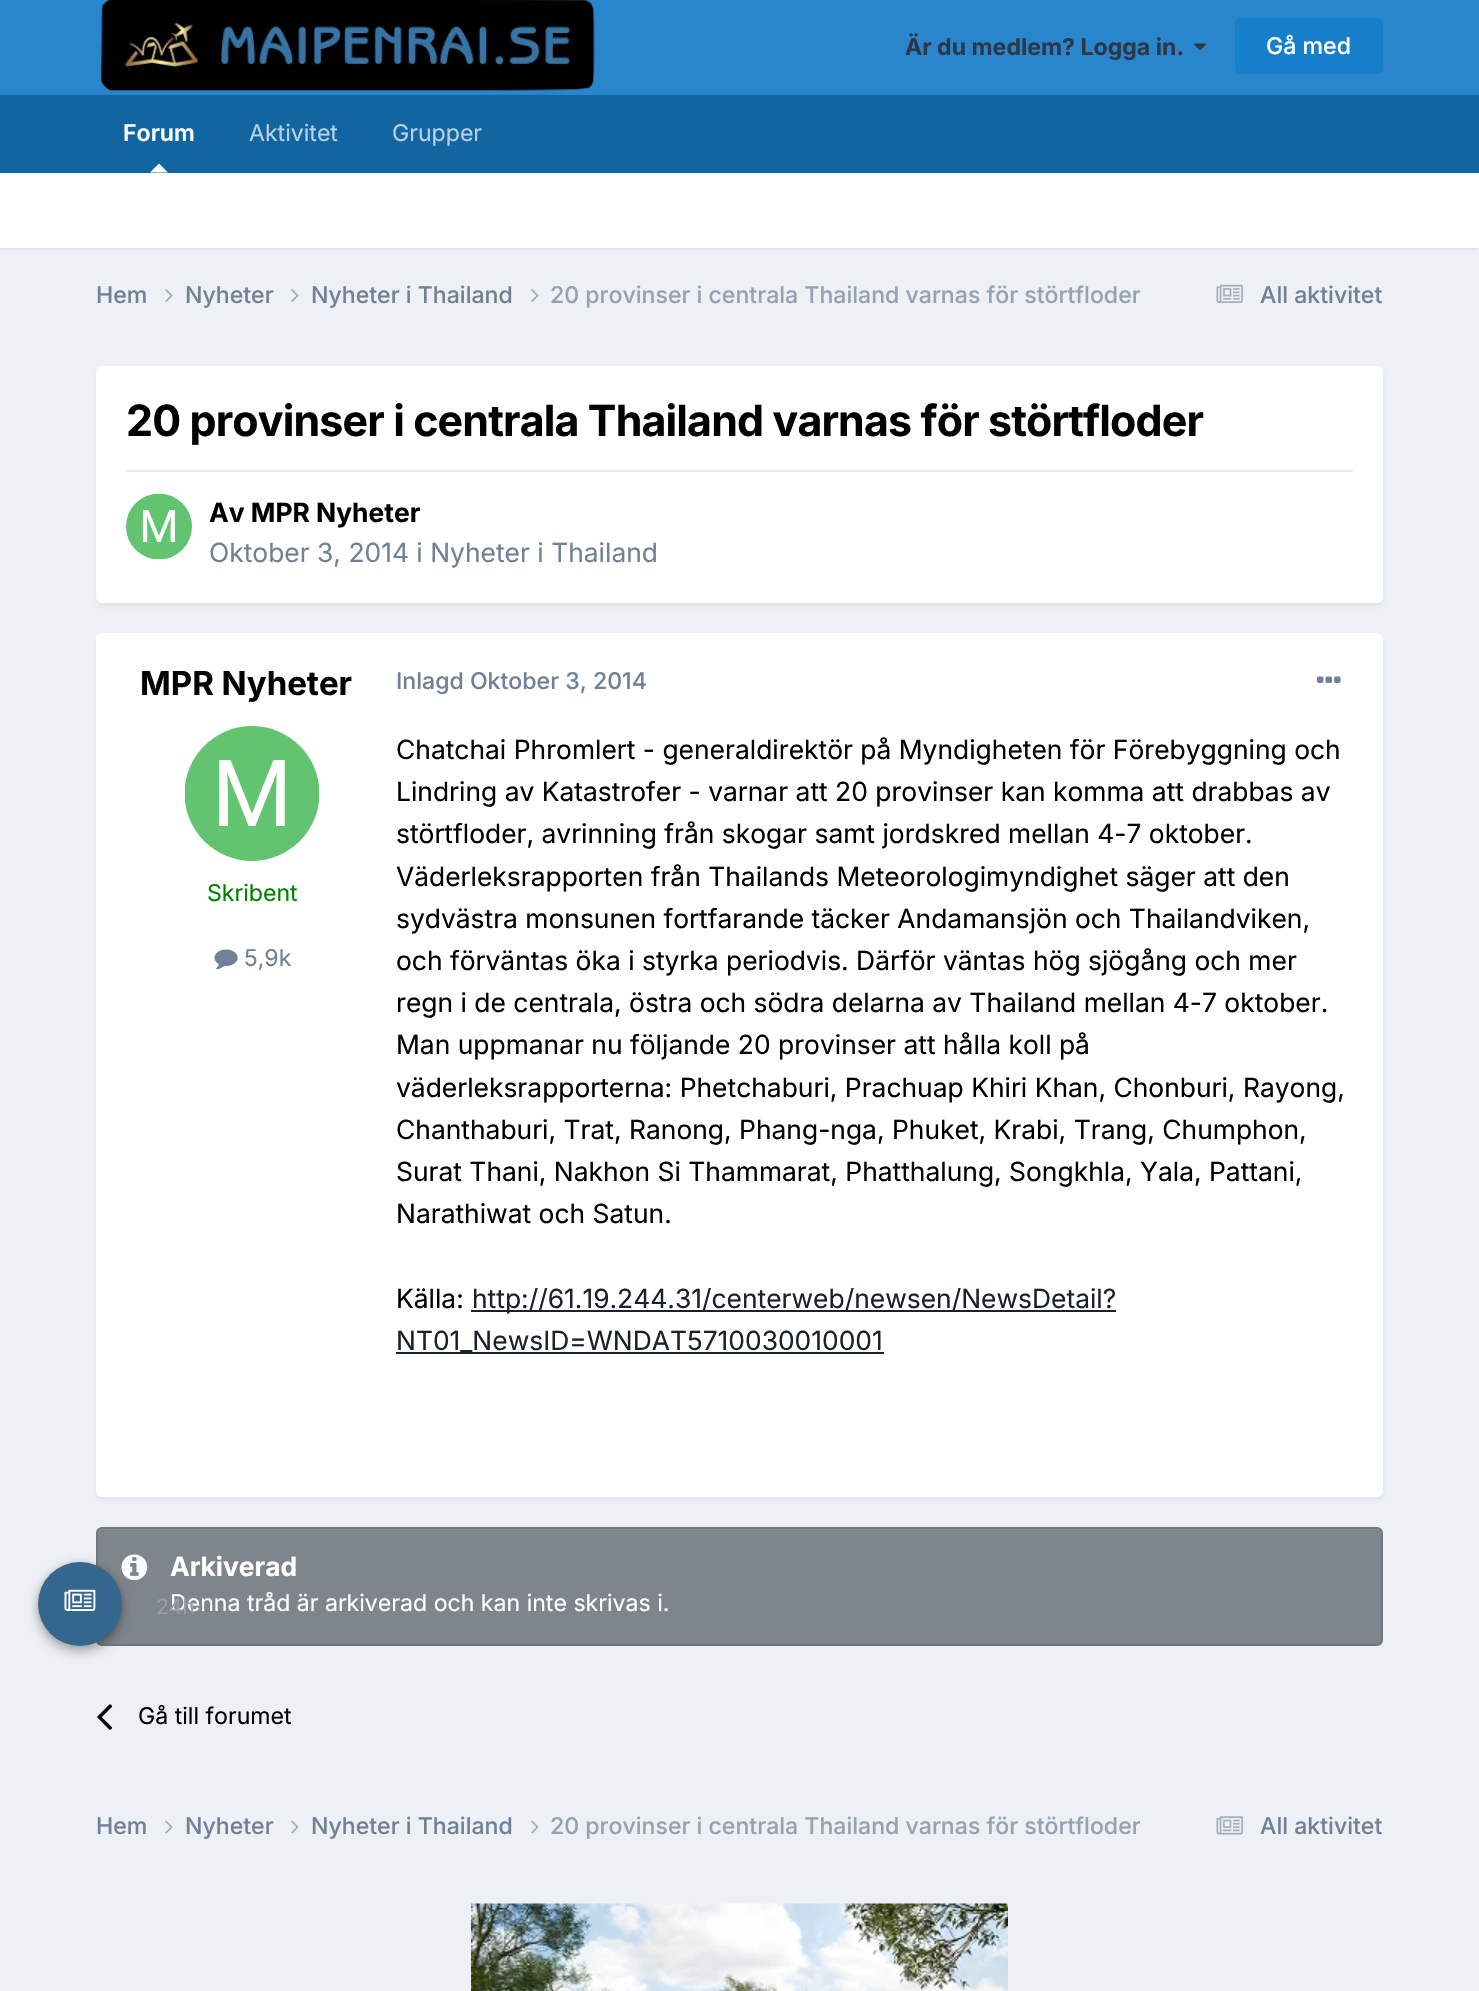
void draw(SkCanvas* canvas) {
    SkPaint paint;
    paint.setAntiAlias(true);
    auto spacedText = [&](const char* s, float x, float y, const SkFont& font, const SkPaint& ink, float letter, float word) {
        std::vector<SkGlyphID> glyphs(font.countText(s, strlen(s), SkTextEncoding::kUTF8));
        std::vector<float> xs(glyphs.size());
        font.textToGlyphs(s, strlen(s), SkTextEncoding::kUTF8, glyphs);
        font.getXPos(glyphs, xs, x);
        float extra = 0;
        for (size_t i = 0; i < glyphs.size(); i++) {
            xs[i] += extra;
            extra += letter + word * (glyphs[i] == font.unicharToGlyph(' '));
        }
        canvas->drawTextBlob(SkTextBlob::MakeFromPosHGlyphs(glyphs, xs, y, font), 0, 0, ink);
    };
    canvas->clear(0xFFEDF0F4);
    paint.setColor(0xFF2986CC);
    canvas->drawRect(SkRect::MakeXYWH(0, 0, 1479, 95), paint);
    canvas->drawImageRect(SkImages::DeferredFromEncodedData(SkData::MakeFromFileName("img1.png")), SkRect::MakeXYWH(101, 0, 494, 91), SkSamplingOptions());
    SkFont font1(fontMgr->matchFamilyStyle("Inter", SkFontStyle::Bold()), 23.1f);
    font1.setSubpixel(true);
    paint.setColor(0xFF2D3748);
    canvas->drawString("Är du medlem? Logga in.", 905, 55, font1, paint);
    canvas->drawImageRect(SkImages::DeferredFromEncodedData(SkData::MakeFromFileName("img2.png")), SkRect::MakeXYWH(1194, 43, 12, 8), SkSamplingOptions());
    paint.setColor(0xFF177EC9);
    canvas->drawRoundRect(SkRect::MakeXYWH(1235, 18, 148, 56), 6, 6, paint);
    SkFont font2(fontMgr->matchFamilyStyle("Inter", SkFontStyle(500, SkFontStyle::kNormal_Width, SkFontStyle::kUpright_Slant)), 23.1f);
    font2.setSubpixel(true);
    paint.setColor(0xFFFFFFFF);
    canvas->drawString("Gå med", 1266, 54, font2, paint);
    paint.setColor(0xFF1265A1);
    canvas->drawRect(SkRect::MakeXYWH(0, 95, 1479, 78), paint);
    SkFont font3(fontMgr->matchFamilyStyle("Inter", SkFontStyle(600, SkFontStyle::kNormal_Width, SkFontStyle::kUpright_Slant)), 23.1f);
    font3.setSubpixel(true);
    paint.setColor(0xFFFFFFFF);
    canvas->drawString("Forum", 123, 141, font3, paint);
    paint.setColor(0x1A000000);
    paint.setMaskFilter(SkMaskFilter::MakeBlur(kNormal_SkBlurStyle, 1.5f));
    canvas->drawRect(SkRect::MakeXYWH(0, 174, 1479, 75), paint);
    paint.setMaskFilter(nullptr);
    paint.setColor(0xFFFFFFFF);
    canvas->drawPath(SkPathBuilder().moveTo(168, 172.5f).lineTo(150, 172.5f).lineTo(159, 163.5f).close().detach(), paint);
    SkFont font4(fontMgr->matchFamilyStyle("Inter", SkFontStyle::Normal()), 23.1f);
    font4.setSubpixel(true);
    paint.setColor(0xFFB8D1E3);
    canvas->drawString("Aktivitet", 249, 141, font4, paint);
    canvas->drawString("Grupper", 392, 141, font4, paint);
    paint.setColor(0xFFFFFFFF);
    canvas->drawRect(SkRect::MakeXYWH(0, 173, 1479, 75), paint);
    paint.setColor(0xFF718096);
    canvas->drawString("Hem", 96, 303, font2, paint);
    canvas->drawImageRect(SkImages::DeferredFromEncodedData(SkData::MakeFromFileName("img3.png")), SkRect::MakeXYWH(165, 289, 8, 13), SkSamplingOptions());
    canvas->drawString("Nyheter", 185, 303, font2, paint);
    canvas->drawImageRect(SkImages::DeferredFromEncodedData(SkData::MakeFromFileName("img3.png")), SkRect::MakeXYWH(291, 289, 8, 13), SkSamplingOptions());
    canvas->drawString("Nyheter i Thailand", 311, 303, font2, paint);
    canvas->drawImageRect(SkImages::DeferredFromEncodedData(SkData::MakeFromFileName("img3.png")), SkRect::MakeXYWH(531, 289, 8, 13), SkSamplingOptions());
    canvas->save();
    canvas->clipRect(SkRect::MakeXYWH(551, 278, 589, 34));
    paint.setColor(0xFF96A2B2);
    canvas->drawString("20 provinser i centrala Thailand varnas för störtfloder", 550, 303, font2, paint);
    canvas->restore();
    canvas->drawImageRect(SkImages::DeferredFromEncodedData(SkData::MakeFromFileName("img4.png")), SkRect::MakeXYWH(1216, 284, 27, 19), SkSamplingOptions());
    paint.setColor(0xFF718096);
    canvas->drawString("All aktivitet", 1260, 303, font2, paint);
    paint.setColor(0x1A2D3748);
    paint.setMaskFilter(SkMaskFilter::MakeBlur(kNormal_SkBlurStyle, 3));
    canvas->drawRoundRect(SkRect::MakeXYWH(98, 371, 1284, 234), 5, 5, paint);
    paint.setMaskFilter(nullptr);
    paint.setColor(0xFFFFFFFF);
    canvas->drawRoundRect(SkRect::MakeXYWH(96, 366, 1287, 237), 6, 6, paint);
    SkFont font5(fontMgr->matchFamilyStyle("Inter", SkFontStyle::Bold()), 42.9f);
    font5.setSubpixel(true);
    paint.setColor(0xFF000000);
    spacedText("20 provinser i centrala Thailand varnas för störtfloder", 126, 436, font5, paint, -0.85f, 0);
    paint.setColor(0xFFEBEBEB);
    canvas->drawRect(SkRect::MakeXYWH(126, 470, 1227, 2), paint);
    canvas->drawImageRect(SkImages::DeferredFromEncodedData(SkData::MakeFromFileName("img5.png")), SkRect::MakeXYWH(126, 494, 66, 66), SkSamplingOptions());
    SkFont font6(fontMgr->matchFamilyStyle("Inter", SkFontStyle::Bold()), 26.4f);
    font6.setSubpixel(true);
    paint.setColor(0xFF000000);
    canvas->drawString("Av MPR Nyheter", 209, 522, font6, paint);
    SkFont font7(fontMgr->matchFamilyStyle("Inter", SkFontStyle::Normal()), 26.4f);
    font7.setSubpixel(true);
    paint.setColor(0xFF718096);
    canvas->drawString("Oktober 3, 2014 i Nyheter i Thailand", 209, 562, font7, paint);
    paint.setColor(0x1A2D3748);
    paint.setMaskFilter(SkMaskFilter::MakeBlur(kNormal_SkBlurStyle, 3));
    canvas->drawRoundRect(SkRect::MakeXYWH(98, 638, 1284, 861), 5, 5, paint);
    paint.setMaskFilter(nullptr);
    paint.setColor(0xFFFFFFFF);
    canvas->drawRoundRect(SkRect::MakeXYWH(96, 633, 1287, 864), 6, 6, paint);
    SkFont font8(fontMgr->matchFamilyStyle("Inter", SkFontStyle::Bold()), 33);
    font8.setSubpixel(true);
    paint.setColor(0xFF000000);
    canvas->drawString("MPR Nyheter", 140, 695, font8, paint);
    canvas->drawImageRect(SkImages::DeferredFromEncodedData(SkData::MakeFromFileName("img6.png")), SkRect::MakeXYWH(185, 726, 135, 135), SkSamplingOptions());
    paint.setColor(0xFF008000);
    canvas->drawString("Skribent", 207, 901, font4, paint);
    canvas->drawImageRect(SkImages::DeferredFromEncodedData(SkData::MakeFromFileName("img7.png")), SkRect::MakeXYWH(214, 949, 24, 21), SkSamplingOptions());
    paint.setColor(0xFF718096);
    canvas->drawString("5,9k", 244, 966, font4, paint);
    canvas->drawString("Inlagd Oktober 3, 2014", 396, 689, font2, paint);
    canvas->drawImageRect(SkImages::DeferredFromEncodedData(SkData::MakeFromFileName("img8.png")), SkRect::MakeXYWH(1317, 676, 24, 7), SkSamplingOptions());
    paint.setColor(0xFF000000);
    canvas->drawString("Chatchai Phromlert - generaldirektör på Myndigheten för Förebyggning och", 396, 759, font7, paint);
    canvas->drawString("Lindring av Katastrofer - varnar att 20 provinser kan komma att drabbas av", 396, 801, font7, paint);
    canvas->drawString("störtfloder, avrinning från skogar samt jordskred mellan 4-7 oktober.", 396, 843, font7, paint);
    canvas->drawString("Väderleksrapporten från Thailands Meteorologimyndighet säger att den", 396, 886, font7, paint);
    canvas->drawString("sydvästra monsunen fortfarande täcker Andamansjön och Thailandviken,", 396, 928, font7, paint);
    canvas->drawString("och förväntas öka i styrka periodvis. Därför väntas hög sjögång och mer", 396, 970, font7, paint);
    canvas->drawString("regn i de centrala, östra och södra delarna av Thailand mellan 4-7 oktober.", 396, 1012, font7, paint);
    canvas->drawString("Man uppmanar nu följande 20 provinser att hålla koll på", 396, 1054, font7, paint);
    canvas->drawString("väderleksrapporterna: Phetchaburi, Prachuap Khiri Khan, Chonburi, Rayong,", 396, 1097, font7, paint);
    canvas->drawString("Chanthaburi, Trat, Ranong, Phang-nga, Phuket, Krabi, Trang, Chumphon,", 396, 1139, font7, paint);
    canvas->drawString("Surat Thani, Nakhon Si Thammarat, Phatthalung, Songkhla, Yala, Pattani,", 396, 1181, font7, paint);
    canvas->drawString("Narathiwat och Satun.", 396, 1223, font7, paint);
    canvas->drawString("Källa:", 396, 1308, font7, paint);
    paint.setColor(0xFF1A202C);
    canvas->drawRect(SkRect::MakeXYWH(471, 1310, 645, 2), paint);
    canvas->drawString("http://61.19.244.31/centerweb/newsen/NewsDetail?", 472, 1308, font7, paint);
    canvas->drawRect(SkRect::MakeXYWH(396, 1352, 488, 2), paint);
    canvas->drawString("NT01_NewsID=WNDAT5710030010001", 396, 1350, font7, paint);
    paint.setColor(0xFF7F858D);
    canvas->drawRoundRect(SkRect::MakeXYWH(96, 1527, 1287, 119), 6, 6, paint);
    paint.setColor(0xFF8C9198);
    canvas->drawPath(SkPathBuilder().moveTo(102, 1530).lineTo(1377, 1530).cubicTo(1379, 1530, 1382, 1532, 1382, 1534).cubicTo(1382, 1531, 1380, 1529, 1377, 1529).lineTo(103, 1529).cubicTo(100, 1529, 98, 1531, 98, 1534).cubicTo(98, 1532, 100, 1530, 102, 1530).close().detach(), paint);
    paint.setStyle(SkPaint::kStroke_Style);
    paint.setStrokeWidth(2);
    paint.setColor(0x1A000000);
    canvas->drawRoundRect(SkRect::MakeXYWH(97, 1528, 1285, 117), 5, 5, paint);
    canvas->drawImageRect(SkImages::DeferredFromEncodedData(SkData::MakeFromFileName("img9.png")), SkRect::MakeXYWH(121, 1554, 27, 27), SkSamplingOptions());
    paint.setStyle(SkPaint::kFill_Style);
    paint.setColor(0xFFFFFFFF);
    canvas->drawString("Arkiverad", 170, 1576, font6, paint);
    canvas->drawString("Denna tråd är arkiverad och kan inte skrivas i.", 170, 1611, font4, paint);
    canvas->drawImageRect(SkImages::DeferredFromEncodedData(SkData::MakeFromFileName("img10.png")), SkRect::MakeXYWH(97, 1704, 16, 26), SkSamplingOptions());
    paint.setColor(0xFF000000);
    canvas->drawString("Gå till forumet", 138, 1724, font4, paint);
    paint.setColor(0xFF718096);
    canvas->drawString("Hem", 96, 1834, font2, paint);
    canvas->drawImageRect(SkImages::DeferredFromEncodedData(SkData::MakeFromFileName("img11.png")), SkRect::MakeXYWH(165, 1820, 8, 14), SkSamplingOptions());
    canvas->drawString("Nyheter", 185, 1834, font2, paint);
    canvas->drawImageRect(SkImages::DeferredFromEncodedData(SkData::MakeFromFileName("img11.png")), SkRect::MakeXYWH(291, 1820, 8, 14), SkSamplingOptions());
    canvas->drawString("Nyheter i Thailand", 311, 1834, font2, paint);
    canvas->drawImageRect(SkImages::DeferredFromEncodedData(SkData::MakeFromFileName("img11.png")), SkRect::MakeXYWH(531, 1820, 8, 14), SkSamplingOptions());
    canvas->save();
    canvas->clipRect(SkRect::MakeXYWH(551, 1809, 589, 35));
    paint.setColor(0xFF96A2B2);
    canvas->drawString("20 provinser i centrala Thailand varnas för störtfloder", 550, 1834, font2, paint);
    canvas->restore();
    canvas->drawImageRect(SkImages::DeferredFromEncodedData(SkData::MakeFromFileName("img12.png")), SkRect::MakeXYWH(1216, 1816, 27, 19), SkSamplingOptions());
    paint.setColor(0xFF718096);
    canvas->drawString("All aktivitet", 1260, 1834, font2, paint);
    paint.setColor(0x47000000);
    paint.setMaskFilter(SkMaskFilter::MakeBlur(kNormal_SkBlurStyle, 6));
    canvas->drawRoundRect(SkRect::MakeXYWH(38, 1568, 84, 84), 42, 42, paint);
    paint.setMaskFilter(nullptr);
    paint.setColor(0x24000000);
    paint.setMaskFilter(SkMaskFilter::MakeBlur(kNormal_SkBlurStyle, 3));
    canvas->drawRoundRect(SkRect::MakeXYWH(38, 1562, 84, 84), 42, 42, paint);
    paint.setMaskFilter(nullptr);
    paint.setColor(0xFF34678D);
    canvas->drawCircle(80, 1604, 42, paint);
    canvas->drawImageRect(SkImages::DeferredFromEncodedData(SkData::MakeFromFileName("img13.png")), SkRect::MakeXYWH(64, 1589, 32, 22), SkSamplingOptions());
    SkFont font9(fontMgr->matchFamilyStyle("Inter", SkFontStyle::Normal()), 21);
    font9.setSubpixel(true);
    paint.setColor(0xFF999EA4);
    canvas->drawString("24h", 156, 1614, font9, paint);
    canvas->drawImageRect(SkImages::DeferredFromEncodedData(SkData::MakeFromFileName("img14.png")), SkRect::MakeXYWH(471, 1903, 537, 88), SkSamplingOptions());
}
